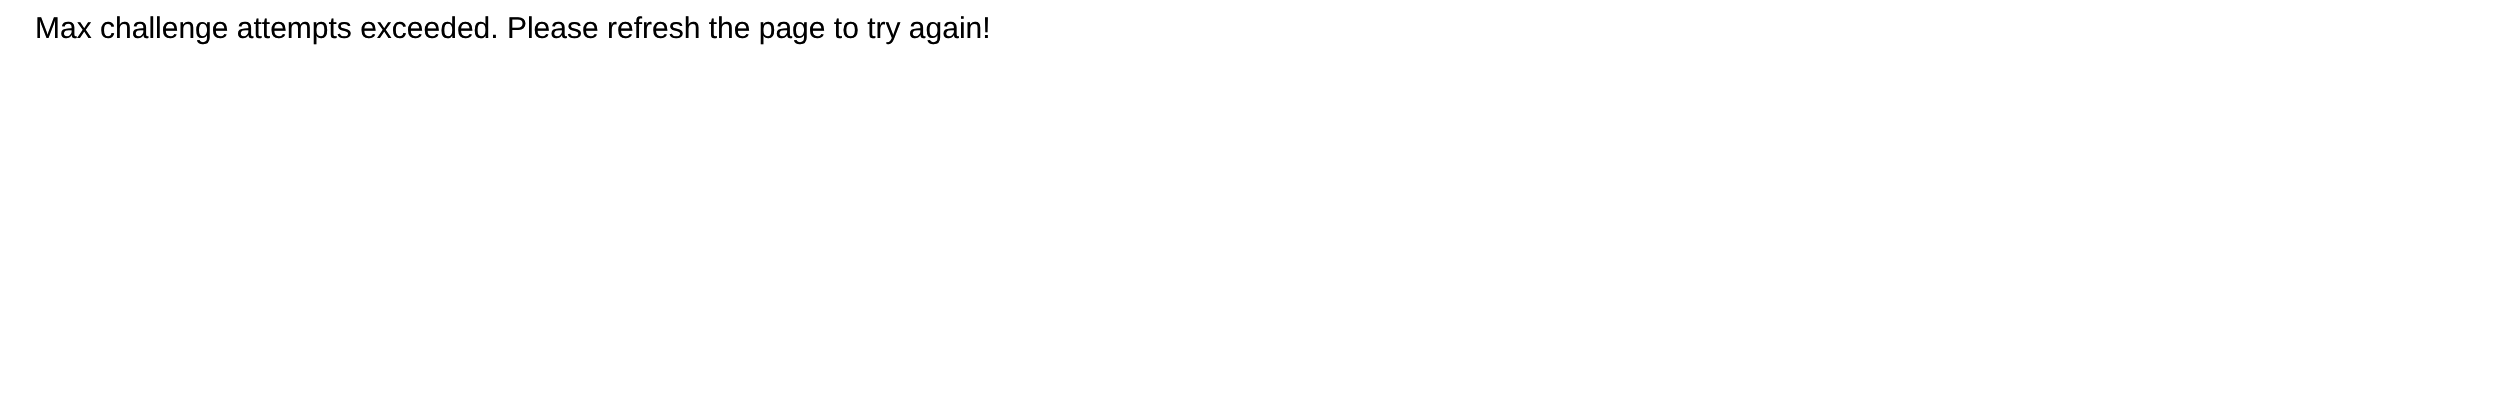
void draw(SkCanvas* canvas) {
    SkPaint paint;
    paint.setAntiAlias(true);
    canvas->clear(0xFFFFFFFF);
    SkFont font1(fontMgr->matchFamilyStyle("Liberation Sans", SkFontStyle::Normal()), 30);
    font1.setSubpixel(true);
    paint.setColor(0xFF000000);
    canvas->drawString("Max challenge attempts exceeded. Please refresh the page to try again!", 35, 38, font1, paint);
}
